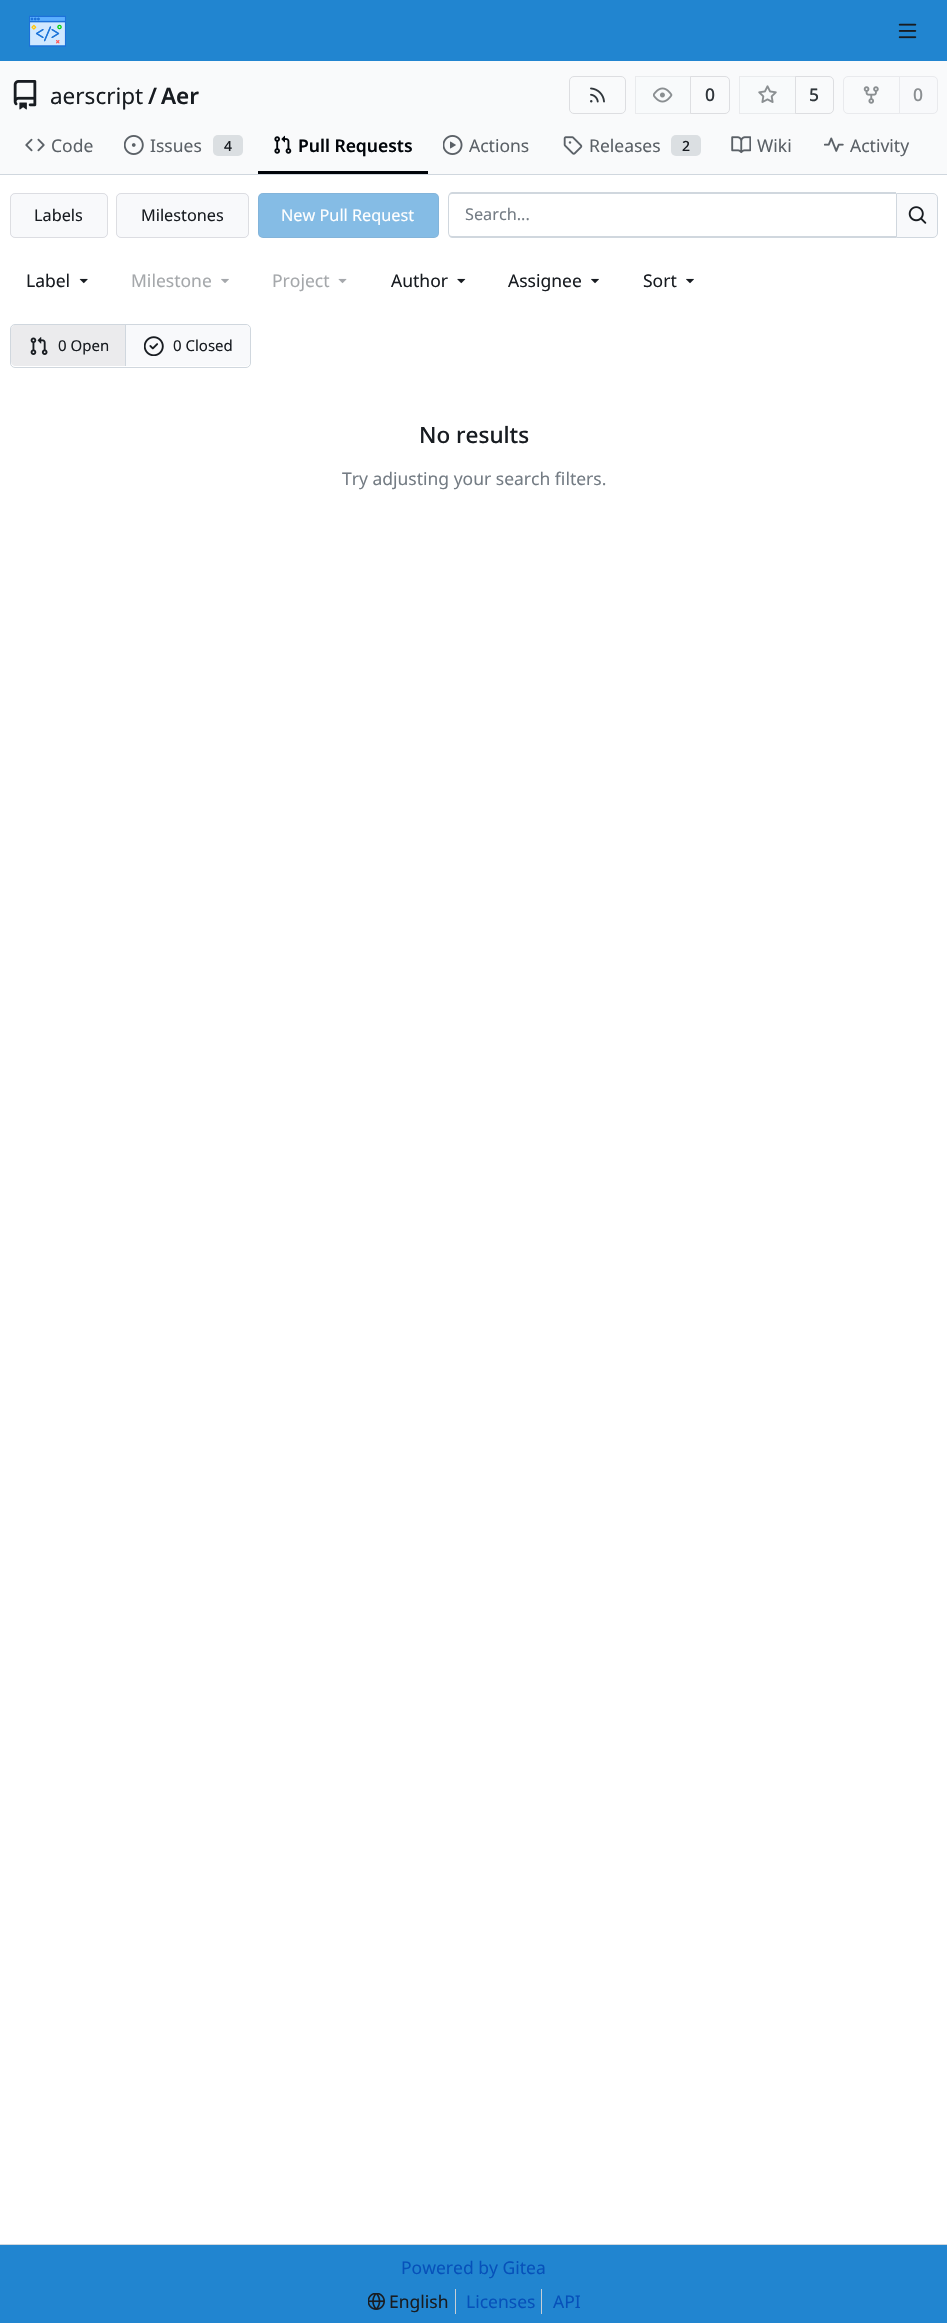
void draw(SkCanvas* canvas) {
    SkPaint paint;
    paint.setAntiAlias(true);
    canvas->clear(0xFFFFFFFF);
    paint.setColor(0xFF2185D0);
    canvas->drawRect(SkRect::MakeXYWH(0, 0, 947, 61), paint);
    canvas->drawImageRect(SkImages::DeferredFromEncodedData(SkData::MakeFromFileName("img1.png")), SkRect::MakeXYWH(29, 15, 37, 32), SkSamplingOptions());
    canvas->drawImageRect(SkImages::DeferredFromEncodedData(SkData::MakeFromFileName("img2.png")), SkRect::MakeXYWH(898, 23, 19, 16), SkSamplingOptions());
    paint.setColor(0xFFF9FAFB);
    canvas->drawRect(SkRect::MakeXYWH(0, 61, 947, 113), paint);
    canvas->drawImageRect(SkImages::DeferredFromEncodedData(SkData::MakeFromFileName("img3.png")), SkRect::MakeXYWH(13, 80, 24, 30), SkSamplingOptions());
    SkFont font1(fontMgr->matchFamilyStyle("Noto Sans", SkFontStyle::Normal()), 22.5f);
    font1.setSubpixel(true);
    paint.setColor(0xFF181C21);
    canvas->drawString("aerscript", 50, 104, font1, paint);
    SkFont font2(fontMgr->matchFamilyStyle("Noto Sans", SkFontStyle(600, SkFontStyle::kNormal_Width, SkFontStyle::kUpright_Slant)), 22.5f);
    font2.setSubpixel(true);
    canvas->drawString("/", 148, 104, font2, paint);
    canvas->drawString("Aer", 161, 104, font2, paint);
    paint.setStyle(SkPaint::kStroke_Style);
    paint.setStrokeWidth(1);
    paint.setColor(0xFFDDDEE1);
    canvas->drawRoundRect(SkRect::MakeXYWH(569.5f, 76.5f, 56, 37), 4.5f, 4.5f, paint);
    canvas->drawImageRect(SkImages::DeferredFromEncodedData(SkData::MakeFromFileName("img4.png")), SkRect::MakeXYWH(590, 87, 15, 16), SkSamplingOptions());
    canvas->drawPath(SkPathBuilder().moveTo(690.5f, 76.5f).lineTo(725, 76.5f).cubicTo(727.5f, 76.5f, 729.5f, 78.5f, 729.5f, 81).lineTo(729.5f, 109).cubicTo(729.5f, 111.5f, 727.5f, 113.5f, 725, 113.5f).lineTo(690.5f, 113.5f).close().detach(), paint);
    paint.setStyle(SkPaint::kFill_Style);
    paint.setColor(0x8CF8F9FB);
    canvas->drawPath(SkPathBuilder().moveTo(640, 76).lineTo(691, 76).lineTo(691, 114).lineTo(640, 114).cubicTo(637, 114, 635, 112, 635, 109).lineTo(635, 81).cubicTo(635, 78, 637, 76, 640, 76).close().detach(), paint);
    paint.setStyle(SkPaint::kStroke_Style);
    paint.setColor(0x0F000017);
    canvas->drawRect(SkRect::MakeXYWH(635.5f, 76.5f, 55, 37), paint);
    canvas->drawImageRect(SkImages::DeferredFromEncodedData(SkData::MakeFromFileName("img5.png")), SkRect::MakeXYWH(653, 87, 20, 16), SkSamplingOptions());
    SkFont font3(fontMgr->matchFamilyStyle("Noto Sans", SkFontStyle(500, SkFontStyle::kNormal_Width, SkFontStyle::kUpright_Slant)), 17.5f);
    font3.setSubpixel(true);
    paint.setStyle(SkPaint::kFill_Style);
    paint.setColor(0xFF30363B);
    canvas->drawString("0", 705, 101, font3, paint);
    paint.setStyle(SkPaint::kStroke_Style);
    paint.setColor(0xFFDDDEE1);
    canvas->drawPath(SkPathBuilder().moveTo(795.5f, 76.5f).lineTo(829, 76.5f).cubicTo(831.5f, 76.5f, 833.5f, 78.5f, 833.5f, 81).lineTo(833.5f, 109).cubicTo(833.5f, 111.5f, 831.5f, 113.5f, 829, 113.5f).lineTo(795.5f, 113.5f).close().detach(), paint);
    paint.setStyle(SkPaint::kFill_Style);
    paint.setColor(0x8CF8F9FB);
    canvas->drawPath(SkPathBuilder().moveTo(744, 76).lineTo(796, 76).lineTo(796, 114).lineTo(744, 114).cubicTo(741, 114, 739, 112, 739, 109).lineTo(739, 81).cubicTo(739, 78, 741, 76, 744, 76).close().detach(), paint);
    paint.setStyle(SkPaint::kStroke_Style);
    paint.setColor(0x0F000017);
    canvas->drawRect(SkRect::MakeXYWH(739.5f, 76.5f, 56, 37), paint);
    canvas->drawImageRect(SkImages::DeferredFromEncodedData(SkData::MakeFromFileName("img6.png")), SkRect::MakeXYWH(758, 85, 19, 18), SkSamplingOptions());
    paint.setStyle(SkPaint::kFill_Style);
    paint.setColor(0xFF30363B);
    canvas->drawString("5", 809, 101, font3, paint);
    paint.setStyle(SkPaint::kStroke_Style);
    paint.setColor(0xFFE9EAED);
    canvas->drawPath(SkPathBuilder().moveTo(848, 76.5f).lineTo(899.5f, 76.5f).lineTo(899.5f, 113.5f).lineTo(848, 113.5f).cubicTo(845.5f, 113.5f, 843.5f, 111.5f, 843.5f, 109).lineTo(843.5f, 81).cubicTo(843.5f, 78.5f, 845.5f, 76.5f, 848, 76.5f).close().detach(), paint);
    canvas->drawImageRect(SkImages::DeferredFromEncodedData(SkData::MakeFromFileName("img7.png")), SkRect::MakeXYWH(863, 86, 16, 18), SkSamplingOptions());
    paint.setStyle(SkPaint::kFill_Style);
    paint.setColor(0xFFF8F9FB);
    canvas->drawPath(SkPathBuilder().moveTo(899.5f, 76.5f).lineTo(933, 76.5f).cubicTo(935.5f, 76.5f, 937.5f, 78.5f, 937.5f, 81).lineTo(937.5f, 109).cubicTo(937.5f, 111.5f, 935.5f, 113.5f, 933, 113.5f).lineTo(899.5f, 113.5f).close().detach(), paint);
    paint.setStyle(SkPaint::kStroke_Style);
    paint.setColor(0xFFE9EAED);
    canvas->drawPath(SkPathBuilder().moveTo(899.5f, 76.5f).lineTo(933, 76.5f).cubicTo(935.5f, 76.5f, 937.5f, 78.5f, 937.5f, 81).lineTo(937.5f, 109).cubicTo(937.5f, 111.5f, 935.5f, 113.5f, 933, 113.5f).lineTo(899.5f, 113.5f).close().detach(), paint);
    paint.setStyle(SkPaint::kFill_Style);
    paint.setColor(0xFF8A8E91);
    canvas->drawString("0", 913, 101, font3, paint);
    canvas->drawImageRect(SkImages::DeferredFromEncodedData(SkData::MakeFromFileName("img8.png")), SkRect::MakeXYWH(25, 138, 20, 14), SkSamplingOptions());
    SkFont font4(fontMgr->matchFamilyStyle("Noto Sans", SkFontStyle::Normal()), 17.5f);
    font4.setSubpixel(true);
    paint.setColor(0xFF5B6167);
    canvas->drawString("Code", 51, 152, font4, paint);
    canvas->drawImageRect(SkImages::DeferredFromEncodedData(SkData::MakeFromFileName("img9.png")), SkRect::MakeXYWH(124, 135, 20, 20), SkSamplingOptions());
    canvas->drawString("Issues", 150, 152, font4, paint);
    paint.setColor(0xFFDBDFE2);
    canvas->drawRoundRect(SkRect::MakeXYWH(213, 135, 30, 21), 5, 5, paint);
    SkFont font5(fontMgr->matchFamilyStyle("Noto Sans", SkFontStyle(500, SkFontStyle::kNormal_Width, SkFontStyle::kUpright_Slant)), 14);
    font5.setSubpixel(true);
    paint.setColor(0xFF181C21);
    canvas->drawString("4", 224, 151, font5, paint);
    paint.setColor(0xFF01050A);
    canvas->drawRect(SkRect::MakeXYWH(258, 171, 170, 3), paint);
    canvas->drawImageRect(SkImages::DeferredFromEncodedData(SkData::MakeFromFileName("img10.png")), SkRect::MakeXYWH(274, 135, 18, 19), SkSamplingOptions());
    SkFont font6(fontMgr->matchFamilyStyle("Noto Sans", SkFontStyle(600, SkFontStyle::kNormal_Width, SkFontStyle::kUpright_Slant)), 17.5f);
    font6.setSubpixel(true);
    canvas->drawString("Pull Requests", 298, 152, font6, paint);
    canvas->drawImageRect(SkImages::DeferredFromEncodedData(SkData::MakeFromFileName("img11.png")), SkRect::MakeXYWH(443, 135, 20, 20), SkSamplingOptions());
    paint.setColor(0xFF5B6167);
    canvas->drawString("Actions", 469, 152, font4, paint);
    canvas->drawImageRect(SkImages::DeferredFromEncodedData(SkData::MakeFromFileName("img12.png")), SkRect::MakeXYWH(563, 136, 20, 19), SkSamplingOptions());
    canvas->drawString("Releases", 589, 152, font4, paint);
    paint.setColor(0xFFDBDFE2);
    canvas->drawRoundRect(SkRect::MakeXYWH(671, 135, 30, 21), 5, 5, paint);
    paint.setColor(0xFF181C21);
    canvas->drawString("2", 682, 151, font5, paint);
    canvas->drawImageRect(SkImages::DeferredFromEncodedData(SkData::MakeFromFileName("img13.png")), SkRect::MakeXYWH(731, 136, 20, 18), SkSamplingOptions());
    paint.setColor(0xFF5B6167);
    canvas->drawString("Wiki", 757, 152, font4, paint);
    canvas->drawImageRect(SkImages::DeferredFromEncodedData(SkData::MakeFromFileName("img14.png")), SkRect::MakeXYWH(824, 137, 20, 15), SkSamplingOptions());
    canvas->drawString("Activity", 850, 152, font4, paint);
    paint.setColor(0xFFD0D7DE);
    canvas->drawRect(SkRect::MakeXYWH(0, 174, 947, 1), paint);
    paint.setColor(0xFFF8F9FB);
    canvas->drawRoundRect(SkRect::MakeXYWH(10, 193, 98, 45), 5, 5, paint);
    paint.setStyle(SkPaint::kStroke_Style);
    paint.setColor(0x1C000017);
    canvas->drawRoundRect(SkRect::MakeXYWH(10.5f, 193.5f, 97, 44), 4.5f, 4.5f, paint);
    SkFont font7(fontMgr->matchFamilyStyle("Noto Sans", SkFontStyle::Normal()), 16.25f);
    font7.setSubpixel(true);
    paint.setStyle(SkPaint::kFill_Style);
    paint.setColor(0xFF181C21);
    canvas->drawString("Labels", 34, 221, font7, paint);
    paint.setColor(0xFFF8F9FB);
    canvas->drawRoundRect(SkRect::MakeXYWH(116, 193, 133, 45), 5, 5, paint);
    paint.setStyle(SkPaint::kStroke_Style);
    paint.setColor(0x1C000017);
    canvas->drawRoundRect(SkRect::MakeXYWH(116.5f, 193.5f, 132, 44), 4.5f, 4.5f, paint);
    paint.setStyle(SkPaint::kFill_Style);
    paint.setColor(0xFF181C21);
    canvas->drawString("Milestones", 141, 221, font7, paint);
    paint.setColor(0xFF85BCE5);
    canvas->drawRoundRect(SkRect::MakeXYWH(258, 193, 181, 45), 5, 5, paint);
    paint.setStyle(SkPaint::kStroke_Style);
    paint.setColor(0x1C73737F);
    canvas->drawRoundRect(SkRect::MakeXYWH(258.5f, 193.5f, 180, 44), 4.5f, 4.5f, paint);
    paint.setStyle(SkPaint::kFill_Style);
    paint.setColor(0xFFFFFFFF);
    canvas->drawString("New Pull Request", 281, 221, font7, paint);
    paint.setColor(0xFFD0D7DE);
    canvas->drawPath(SkPathBuilder(SkPathFillType::kEvenOdd).moveTo(452, 192).lineTo(896, 192).lineTo(896, 238).lineTo(452, 238).cubicTo(450, 238, 448, 235, 448, 232).lineTo(448, 198).cubicTo(448, 195, 450, 192, 452, 192).close().moveTo(452, 194).lineTo(896, 194).lineTo(896, 236).lineTo(452, 236).cubicTo(450, 236, 449, 235, 449, 232).lineTo(449, 198).cubicTo(449, 195, 450, 194, 452, 194).close().detach(), paint);
    paint.setColor(0xFF747C84);
    canvas->drawString("Search...", 465, 220, font7, paint);
    paint.setColor(0xFFF8F9FB);
    canvas->drawPath(SkPathBuilder().moveTo(896.5f, 193.5f).lineTo(933, 193.5f).cubicTo(935.5f, 193.5f, 937.5f, 195.5f, 937.5f, 198).lineTo(937.5f, 233).cubicTo(937.5f, 235.5f, 935.5f, 237.5f, 933, 237.5f).lineTo(896.5f, 237.5f).close().detach(), paint);
    paint.setStyle(SkPaint::kStroke_Style);
    paint.setColor(0xFFD0D7DE);
    canvas->drawPath(SkPathBuilder().moveTo(896.5f, 193.5f).lineTo(933, 193.5f).cubicTo(935.5f, 193.5f, 937.5f, 195.5f, 937.5f, 198).lineTo(937.5f, 233).cubicTo(937.5f, 235.5f, 935.5f, 237.5f, 933, 237.5f).lineTo(896.5f, 237.5f).close().detach(), paint);
    canvas->drawImageRect(SkImages::DeferredFromEncodedData(SkData::MakeFromFileName("img15.png")), SkRect::MakeXYWH(908, 206, 19, 18), SkSamplingOptions());
    paint.setStyle(SkPaint::kFill_Style);
    paint.setColor(0xFF181C21);
    canvas->drawString("Label", 26, 287, font4, paint);
    canvas->drawImageRect(SkImages::DeferredFromEncodedData(SkData::MakeFromFileName("img16.png")), SkRect::MakeXYWH(79, 278, 9, 6), SkSamplingOptions());
    paint.setColor(0xFFA5A8AB);
    canvas->drawString("Milestone", 131, 287, font4, paint);
    canvas->drawImageRect(SkImages::DeferredFromEncodedData(SkData::MakeFromFileName("img17.png")), SkRect::MakeXYWH(221, 278, 8, 5), SkSamplingOptions());
    canvas->drawString("Project", 272, 287, font4, paint);
    canvas->drawImageRect(SkImages::DeferredFromEncodedData(SkData::MakeFromFileName("img18.png")), SkRect::MakeXYWH(338, 278, 9, 6), SkSamplingOptions());
    paint.setColor(0xFF181C21);
    canvas->drawString("Author", 391, 287, font4, paint);
    canvas->drawImageRect(SkImages::DeferredFromEncodedData(SkData::MakeFromFileName("img19.png")), SkRect::MakeXYWH(457, 278, 9, 6), SkSamplingOptions());
    canvas->drawString("Assignee", 508, 287, font4, paint);
    canvas->drawImageRect(SkImages::DeferredFromEncodedData(SkData::MakeFromFileName("img20.png")), SkRect::MakeXYWH(591, 278, 8, 6), SkSamplingOptions());
    canvas->drawString("Sort", 643, 287, font4, paint);
    canvas->drawImageRect(SkImages::DeferredFromEncodedData(SkData::MakeFromFileName("img20.png")), SkRect::MakeXYWH(686, 278, 8, 6), SkSamplingOptions());
    paint.setStyle(SkPaint::kStroke_Style);
    paint.setColor(0xFFD0D7DE);
    canvas->drawRoundRect(SkRect::MakeXYWH(10.5f, 324.5f, 240, 43), 4.5f, 4.5f, paint);
    paint.setStyle(SkPaint::kFill_Style);
    paint.setColor(0x14000017);
    canvas->drawPath(SkPathBuilder().moveTo(16, 325).lineTo(126, 325).lineTo(126, 366).lineTo(16, 366).cubicTo(13, 366, 11, 364, 11, 361).lineTo(11, 330).cubicTo(11, 327, 13, 325, 16, 325).close().detach(), paint);
    canvas->drawImageRect(SkImages::DeferredFromEncodedData(SkData::MakeFromFileName("img21.png")), SkRect::MakeXYWH(30, 337, 18, 18), SkSamplingOptions());
    SkFont font8(fontMgr->matchFamilyStyle("Noto Sans", SkFontStyle::Normal()), 15);
    font8.setSubpixel(true);
    paint.setColor(0xFF181C21);
    canvas->drawString("0 Open", 58, 351, font8, paint);
    paint.setColor(0xFFD0D7DE);
    canvas->drawRect(SkRect::MakeXYWH(125, 325, 1, 41), paint);
    paint.setColor(0xFFF8F9FB);
    canvas->drawPath(SkPathBuilder().moveTo(126, 325).lineTo(245, 325).cubicTo(248, 325, 250, 327, 250, 330).lineTo(250, 361).cubicTo(250, 364, 248, 366, 245, 366).lineTo(126, 366).close().detach(), paint);
    canvas->drawImageRect(SkImages::DeferredFromEncodedData(SkData::MakeFromFileName("img22.png")), SkRect::MakeXYWH(144, 336, 20, 20), SkSamplingOptions());
    paint.setColor(0xFF181C21);
    canvas->drawString("0 Closed", 173, 351, font8, paint);
    SkFont font9(fontMgr->matchFamilyStyle("Noto Sans", SkFontStyle(500, SkFontStyle::kNormal_Width, SkFontStyle::kUpright_Slant)), 22.5f);
    font9.setSubpixel(true);
    canvas->drawString("No results", 419, 443, font9, paint);
    paint.setColor(0xFF747C84);
    canvas->drawString("Try adjusting your search filters.", 342, 485, font4, paint);
    paint.setColor(0xFF2185D0);
    canvas->drawRect(SkRect::MakeXYWH(0, 2245, 947, 78), paint);
    paint.setColor(0xFFD0D7DE);
    canvas->drawRect(SkRect::MakeXYWH(0, 2244, 947, 1), paint);
    paint.setColor(0xFF0651BA);
    canvas->drawString("Powered by Gitea", 401, 2274, font4, paint);
    canvas->drawImageRect(SkImages::DeferredFromEncodedData(SkData::MakeFromFileName("img23.png")), SkRect::MakeXYWH(368, 2293, 17, 17), SkSamplingOptions());
    paint.setColor(0xFF181C21);
    canvas->drawString("English", 389, 2308, font4, paint);
    paint.setColor(0xFFC7CED5);
    canvas->drawRect(SkRect::MakeXYWH(455, 2289, 1, 25), paint);
    paint.setColor(0xFF0651BA);
    canvas->drawString("Licenses", 466, 2308, font4, paint);
    paint.setColor(0xFFC7CED5);
    canvas->drawRect(SkRect::MakeXYWH(541, 2289, 1, 25), paint);
    paint.setColor(0xFF0651BA);
    canvas->drawString("API", 553, 2308, font4, paint);
}
